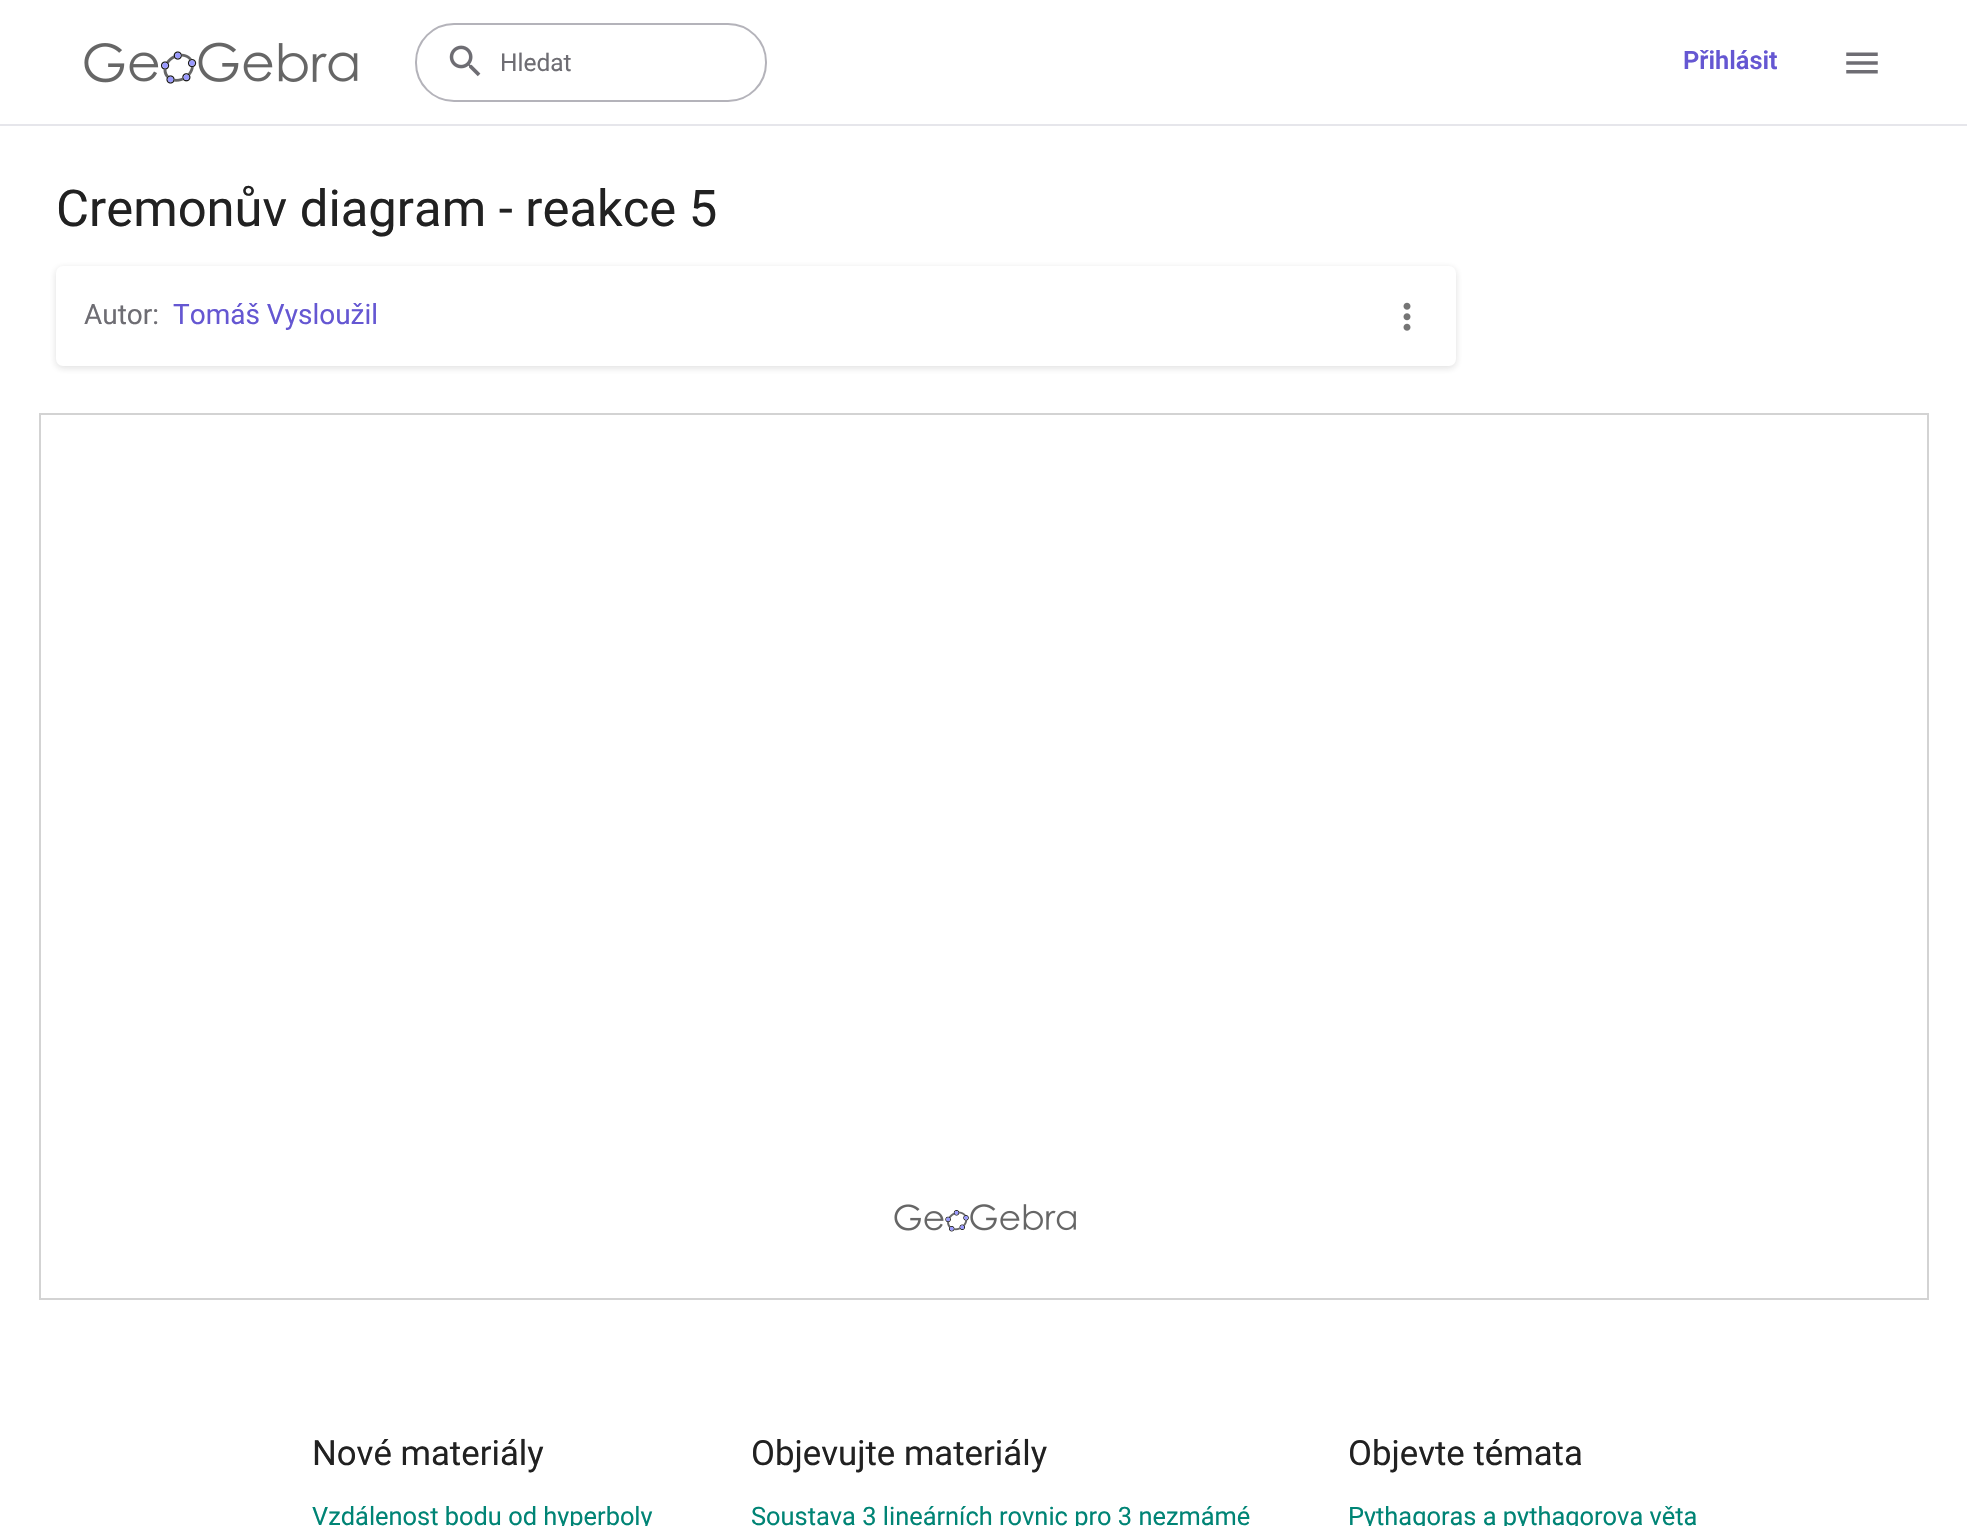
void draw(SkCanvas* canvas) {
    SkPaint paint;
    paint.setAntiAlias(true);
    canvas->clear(0xFFFFFFFF);
    paint.setColor(0xFFE6E6EB);
    canvas->drawRect(SkRect::MakeXYWH(0, 124, 1967, 2), paint);
    canvas->drawImageRect(SkImages::DeferredFromEncodedData(SkData::MakeFromFileName("img1.png")), SkRect::MakeXYWH(84, 42, 274, 42), SkSamplingOptions());
    paint.setStyle(SkPaint::kStroke_Style);
    paint.setStrokeWidth(2);
    paint.setColor(0xFFB4B3BA);
    canvas->drawRoundRect(SkRect::MakeXYWH(416, 24, 350, 77), 38, 38, paint);
    canvas->drawImageRect(SkImages::DeferredFromEncodedData(SkData::MakeFromFileName("img2.png")), SkRect::MakeXYWH(449, 45, 32, 32), SkSamplingOptions());
    SkFont font1(fontMgr->matchFamilyStyle("Roboto", SkFontStyle::Normal()), 24.5f);
    font1.setSubpixel(true);
    paint.setStyle(SkPaint::kFill_Style);
    paint.setColor(0xFF6E6D73);
    canvas->drawString("Hledat", 500, 71, font1, paint);
    SkFont font2(fontMgr->matchFamilyStyle("Roboto", SkFontStyle(600, SkFontStyle::kNormal_Width, SkFontStyle::kUpright_Slant)), 25.4f);
    font2.setSubpixel(true);
    paint.setColor(0xFF6557D2);
    canvas->drawString("Přihlásit", 1683, 69, font2, paint);
    canvas->drawImageRect(SkImages::DeferredFromEncodedData(SkData::MakeFromFileName("img3.png")), SkRect::MakeXYWH(1846, 52, 32, 22), SkSamplingOptions());
    SkFont font3(fontMgr->matchFamilyStyle("Roboto", SkFontStyle::Normal()), 50.75f);
    font3.setSubpixel(true);
    paint.setColor(0xFF212121);
    canvas->drawString("Cremonův diagram - reakce 5", 56, 226, font3, paint);
    paint.setColor(0x241C1C1F);
    paint.setMaskFilter(SkMaskFilter::MakeBlur(kNormal_SkBlurStyle, 3.5f));
    canvas->drawRoundRect(SkRect::MakeXYWH(56, 268, 1400, 100), 7, 7, paint);
    paint.setMaskFilter(nullptr);
    paint.setColor(0xFFFFFFFF);
    canvas->drawRoundRect(SkRect::MakeXYWH(56, 266, 1400, 100), 7, 7, paint);
    SkFont font4(fontMgr->matchFamilyStyle("Roboto", SkFontStyle::Normal()), 28);
    font4.setSubpixel(true);
    paint.setColor(0xFF6E6D73);
    canvas->drawString("Autor:", 84, 324, font4, paint);
    paint.setColor(0xFF6557D2);
    canvas->drawString("Tomáš Vysloužil", 173, 324, font4, paint);
    canvas->drawImageRect(SkImages::DeferredFromEncodedData(SkData::MakeFromFileName("img4.png")), SkRect::MakeXYWH(1403, 302, 8, 29), SkSamplingOptions());
    canvas->drawImageRect(SkImages::DeferredFromEncodedData(SkData::MakeFromFileName("img5.png")), SkRect::MakeXYWH(894, 1204, 182, 28), SkSamplingOptions());
    paint.setStyle(SkPaint::kStroke_Style);
    paint.setColor(0xFFD3D3D3);
    canvas->drawRect(SkRect::MakeXYWH(40, 414, 1888, 885), paint);
    SkFont font5(fontMgr->matchFamilyStyle("Roboto", SkFontStyle::Normal()), 34.75f);
    font5.setSubpixel(true);
    paint.setStyle(SkPaint::kFill_Style);
    paint.setColor(0xFF212121);
    canvas->drawString("Nové materiály", 312, 1465, font5, paint);
    SkFont font6(fontMgr->matchFamilyStyle("Roboto", SkFontStyle::Normal()), 25.4f);
    font6.setSubpixel(true);
    paint.setColor(0xFF008475);
    canvas->drawString("Vzdálenost bodu od hyperboly", 312, 1525, font6, paint);
    paint.setColor(0xFF212121);
    canvas->drawString("Objevujte materiály", 751, 1465, font5, paint);
    paint.setColor(0xFF008475);
    canvas->drawString("Soustava 3 lineárních rovnic pro 3 nezmámé", 751, 1525, font6, paint);
    paint.setColor(0xFF212121);
    canvas->drawString("Objevte témata", 1348, 1465, font5, paint);
    paint.setColor(0xFF008475);
    canvas->drawString("Pythagoras a pythagorova věta", 1348, 1525, font6, paint);
}
